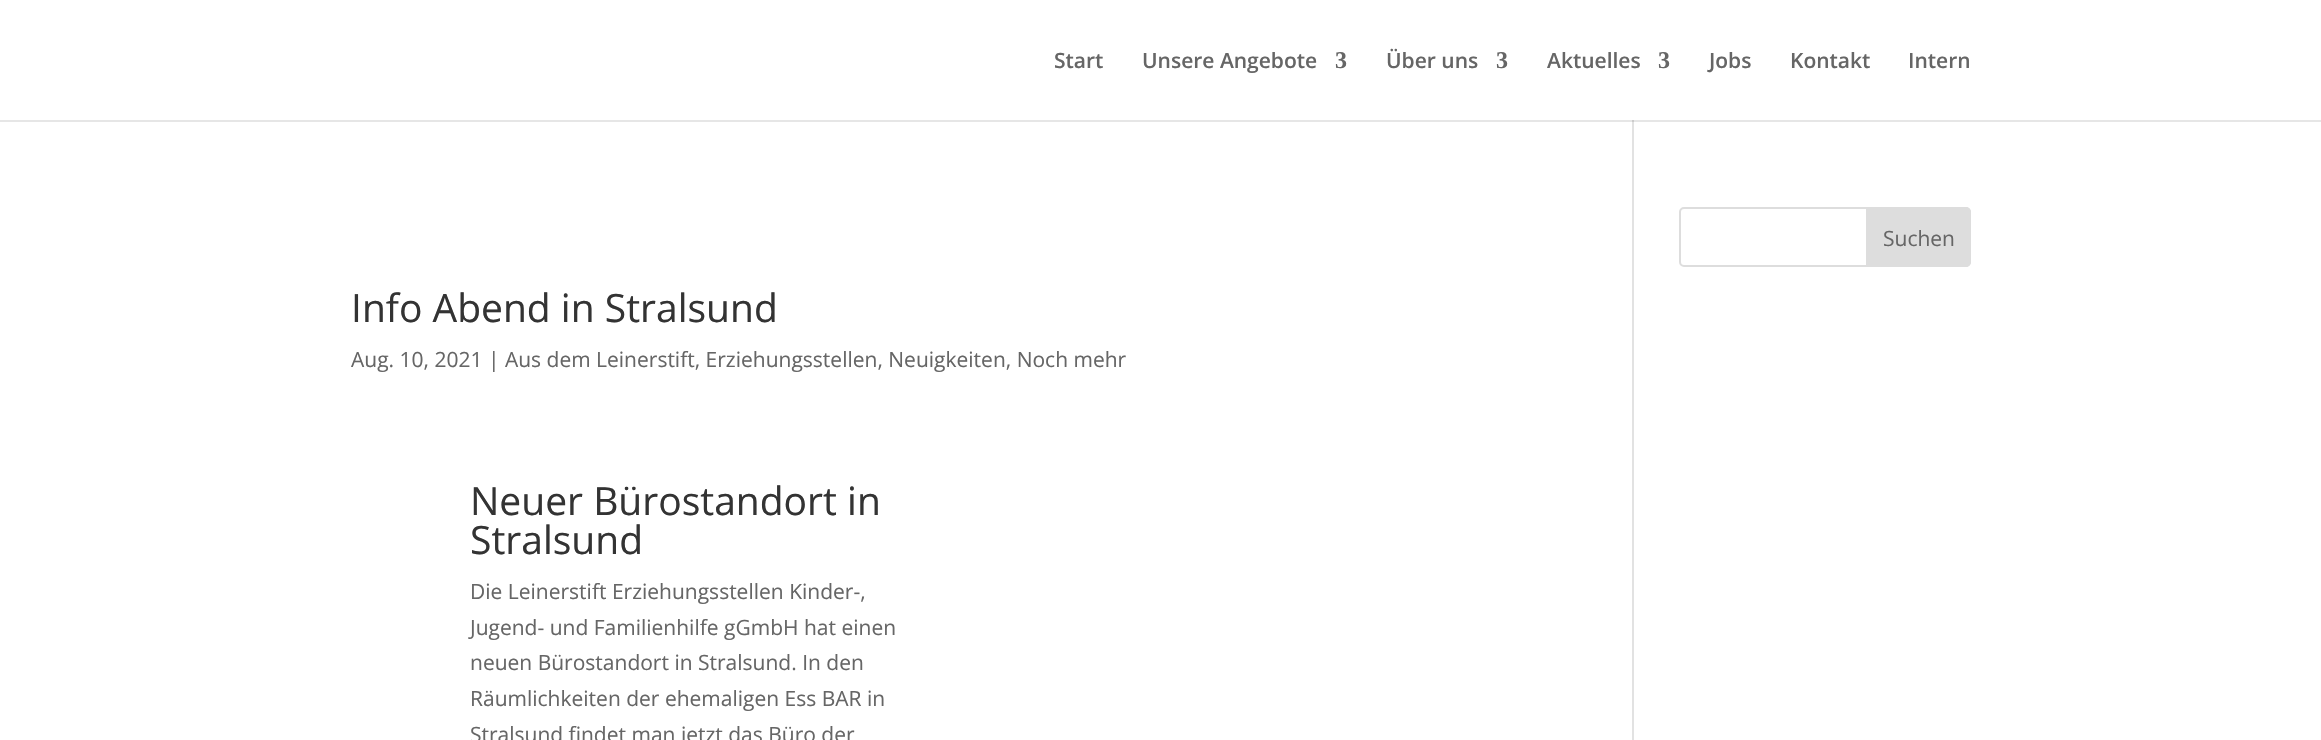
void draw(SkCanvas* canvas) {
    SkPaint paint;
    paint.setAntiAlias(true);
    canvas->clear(0xFFFFFFFF);
    paint.setColor(0xFFE6E6E6);
    canvas->drawRect(SkRect::MakeXYWH(0, 120, 2321, 2), paint);
    SkFont font1(fontMgr->matchFamilyStyle("Open Sans", SkFontStyle(600, SkFontStyle::kNormal_Width, SkFontStyle::kUpright_Slant)), 21);
    font1.setSubpixel(true);
    paint.setColor(0xFF666666);
    canvas->drawString("Start", 1054, 68, font1, paint);
    canvas->drawString("Unsere Angebote", 1142, 68, font1, paint);
    SkFont font2(fontMgr->matchFamilyStyle("Liberation Serif", SkFontStyle::Bold()), 24);
    font2.setSubpixel(true);
    canvas->drawString("3", 1335, 68, font2, paint);
    canvas->drawString("Über uns", 1386, 68, font1, paint);
    canvas->drawString("3", 1496, 68, font2, paint);
    canvas->drawString("Aktuelles", 1547, 68, font1, paint);
    canvas->drawString("3", 1658, 68, font2, paint);
    canvas->drawString("Jobs", 1709, 68, font1, paint);
    canvas->drawString("Kontakt", 1790, 68, font1, paint);
    canvas->drawString("Intern", 1908, 68, font1, paint);
    paint.setColor(0xFFE2E2E2);
    canvas->drawRect(SkRect::MakeXYWH(1632, 120, 2, 620), paint);
    paint.setColor(0xFFCBCBCB);
    canvas->drawRect(SkRect::MakeXYWH(1632, 120, 2, 2), paint);
    paint.setStyle(SkPaint::kStroke_Style);
    paint.setStrokeWidth(2);
    paint.setColor(0xFFDDDDDD);
    canvas->drawRoundRect(SkRect::MakeXYWH(1680, 208, 290, 58), 4, 4, paint);
    paint.setStyle(SkPaint::kFill_Style);
    canvas->drawPath(SkPathBuilder().moveTo(1867, 208).lineTo(1966, 208).cubicTo(1968, 208, 1970, 210, 1970, 212).lineTo(1970, 262).cubicTo(1970, 264, 1968, 266, 1966, 266).lineTo(1867, 266).close().detach(), paint);
    paint.setStyle(SkPaint::kStroke_Style);
    canvas->drawPath(SkPathBuilder().moveTo(1867, 208).lineTo(1966, 208).cubicTo(1968, 208, 1970, 210, 1970, 212).lineTo(1970, 262).cubicTo(1970, 264, 1968, 266, 1966, 266).lineTo(1867, 266).close().detach(), paint);
    SkFont font3(fontMgr->matchFamilyStyle("Open Sans", SkFontStyle::Normal()), 21);
    font3.setSubpixel(true);
    paint.setStyle(SkPaint::kFill_Style);
    paint.setColor(0xFF666666);
    canvas->drawString("Suchen", 1883, 246, font3, paint);
    SkFont font4(fontMgr->matchFamilyStyle("Open Sans", SkFontStyle::Normal()), 39);
    font4.setSubpixel(true);
    paint.setColor(0xFF333333);
    canvas->drawString("Info Abend in Stralsund", 351, 322, font4, paint);
    paint.setColor(0xFF666666);
    canvas->drawString("Aug. 10, 2021 | Aus dem Leinerstift, Erziehungsstellen, Neuigkeiten, Noch mehr", 351, 367, font3, paint);
    paint.setColor(0xFF333333);
    canvas->drawString("Neuer Bürostandort in", 470, 515, font4, paint);
    canvas->drawString("Stralsund", 470, 554, font4, paint);
    paint.setColor(0xFF666666);
    canvas->drawString("Die Leinerstift Erziehungsstellen Kinder-,", 470, 599, font3, paint);
    canvas->drawString("Jugend- und Familienhilfe gGmbH hat einen", 470, 635, font3, paint);
    canvas->drawString("neuen Bürostandort in Stralsund. In den", 470, 670, font3, paint);
    canvas->drawString("Räumlichkeiten der ehemaligen Ess BAR in", 470, 706, font3, paint);
    canvas->drawString("Stralsund findet man jetzt das Büro der", 470, 742, font3, paint);
}
